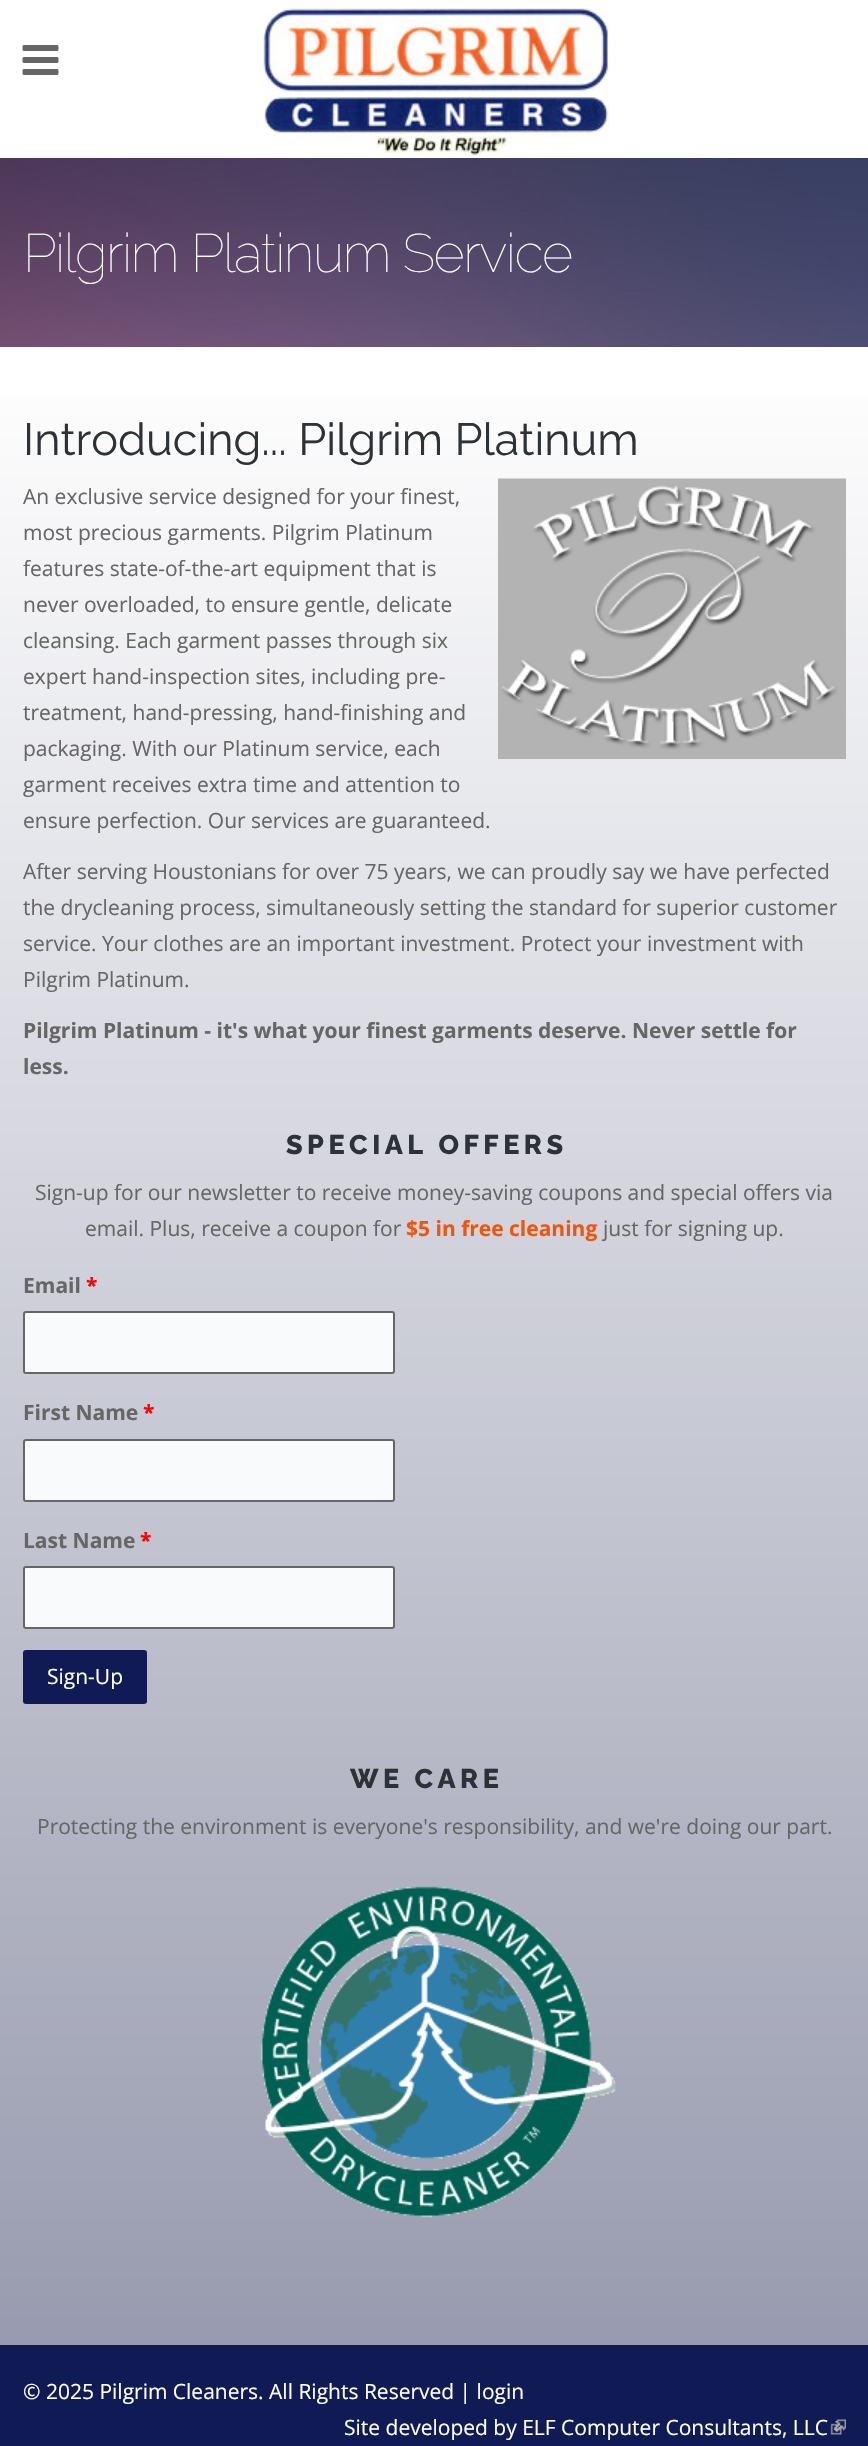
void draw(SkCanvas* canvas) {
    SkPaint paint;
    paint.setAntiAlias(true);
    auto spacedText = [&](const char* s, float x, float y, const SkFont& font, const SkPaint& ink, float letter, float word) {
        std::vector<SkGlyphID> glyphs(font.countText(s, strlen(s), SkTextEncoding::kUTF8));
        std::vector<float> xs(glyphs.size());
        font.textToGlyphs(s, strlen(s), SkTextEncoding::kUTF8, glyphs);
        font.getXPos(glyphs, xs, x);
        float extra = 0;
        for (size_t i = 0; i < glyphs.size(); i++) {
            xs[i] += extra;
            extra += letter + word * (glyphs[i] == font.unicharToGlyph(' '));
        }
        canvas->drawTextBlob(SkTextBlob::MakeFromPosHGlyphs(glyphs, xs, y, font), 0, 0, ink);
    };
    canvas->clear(0xFFFFFFFF);
    canvas->drawImageRect(SkImages::DeferredFromEncodedData(SkData::MakeFromFileName("img1.png")), SkRect::MakeXYWH(22, 45, 37, 30), SkSamplingOptions());
    canvas->drawImageRect(SkImages::DeferredFromEncodedData(SkData::MakeFromFileName("img2.png")), SkRect::MakeXYWH(263, 7, 347, 149), SkSamplingOptions());
    canvas->drawImageRect(SkImages::DeferredFromEncodedData(SkData::MakeFromFileName("img3.png")), SkRect::MakeXYWH(0, 158, 868, 189), SkSamplingOptions());
    SkFont font1(fontMgr->matchFamilyStyle("Raleway", SkFontStyle(100, SkFontStyle::kNormal_Width, SkFontStyle::kUpright_Slant)), 54);
    font1.setSubpixel(true);
    paint.setColor(0xFFFFFFFF);
    spacedText("Pilgrim Platinum Service", 23, 272, font1, paint, -1.5f, 0);
    {
        const SkColor colors[] = {0xFFFFFFFF, 0xFF989BAF};
        const float stops[] = {0, 1};
        const SkPoint ends[] = {{434, 347}, {434, 2345}};
        paint.setShader(SkGradientShader::MakeLinear(ends, colors, stops, 2, SkTileMode::kClamp));
        paint.setAlpha(255);
    }
    canvas->drawRect(SkRect::MakeXYWH(0, 396, 868, 1949), paint);
    SkFont font2(fontMgr->matchFamilyStyle("Raleway", SkFontStyle::Normal()), 45);
    font2.setSubpixel(true);
    paint.setShader(nullptr);
    paint.setColor(0xFF2D3237);
    canvas->drawString("Introducing... Pilgrim Platinum", 23, 455, font2, paint);
    SkFont font3(fontMgr->matchFamilyStyle("Open Sans", SkFontStyle::Normal()), 21);
    font3.setSubpixel(true);
    paint.setColor(0xFF666666);
    canvas->drawString("An exclusive service designed for your finest,", 23, 504, font3, paint);
    canvas->drawImageRect(SkImages::DeferredFromEncodedData(SkData::MakeFromFileName("img4.png")), SkRect::MakeXYWH(498, 478, 348, 281), SkSamplingOptions());
    canvas->drawString("most precious garments. Pilgrim Platinum", 23, 540, font3, paint);
    canvas->drawString("features state-of-the-art equipment that is", 23, 576, font3, paint);
    canvas->drawString("never overloaded, to ensure gentle, delicate", 23, 612, font3, paint);
    canvas->drawString("cleansing. Each garment passes through six", 23, 648, font3, paint);
    canvas->drawString("expert hand-inspection sites, including pre-", 23, 684, font3, paint);
    canvas->drawString("treatment, hand-pressing, hand-finishing and", 23, 720, font3, paint);
    canvas->drawString("packaging. With our Platinum service, each", 23, 756, font3, paint);
    canvas->drawString("garment receives extra time and attention to", 23, 792, font3, paint);
    canvas->drawString("ensure perfection. Our services are guaranteed.", 23, 828, font3, paint);
    canvas->drawString("After serving Houstonians for over 75 years, we can proudly say we have perfected", 23, 879, font3, paint);
    canvas->drawString("the drycleaning process, simultaneously setting the standard for superior customer", 23, 915, font3, paint);
    canvas->drawString("service. Your clothes are an important investment. Protect your investment with", 23, 951, font3, paint);
    canvas->drawString("Pilgrim Platinum.", 23, 987, font3, paint);
    SkFont font4(fontMgr->matchFamilyStyle("Open Sans", SkFontStyle::Bold()), 21);
    font4.setSubpixel(true);
    canvas->drawString("Pilgrim Platinum - it's what your finest garments deserve. Never settle for", 23, 1038, font4, paint);
    canvas->drawString("less.", 23, 1074, font4, paint);
    SkFont font5(fontMgr->matchFamilyStyle("Raleway", SkFontStyle(800, SkFontStyle::kNormal_Width, SkFontStyle::kUpright_Slant)), 27);
    font5.setSubpixel(true);
    paint.setColor(0xFF2D3237);
    spacedText("SPECIAL OFFERS", 286, 1154, font5, paint, 4.5f, 0);
    paint.setColor(0xFF666666);
    canvas->drawString("Sign-up for our newsletter to receive money-saving coupons and special offers via", 35, 1200, font3, paint);
    canvas->drawString("email. Plus, receive a coupon for", 85, 1236, font3, paint);
    paint.setColor(0xFFF1550B);
    canvas->drawString("$5 in free cleaning", 406, 1236, font4, paint);
    paint.setColor(0xFF666666);
    canvas->drawString("just for signing up.", 603, 1236, font3, paint);
    canvas->drawString("Email", 23, 1293, font4, paint);
    paint.setColor(0xFFFF0000);
    canvas->drawString("*", 86, 1293, font4, paint);
    paint.setColor(0xFFF8FAFC);
    canvas->drawRoundRect(SkRect::MakeXYWH(24, 1312, 370, 61), 2, 2, paint);
    paint.setStyle(SkPaint::kStroke_Style);
    paint.setStrokeWidth(2);
    paint.setColor(0xFF666666);
    canvas->drawRoundRect(SkRect::MakeXYWH(24, 1312, 370, 61), 2, 2, paint);
    paint.setStyle(SkPaint::kFill_Style);
    canvas->drawString("First Name", 23, 1420, font4, paint);
    paint.setColor(0xFFFF0000);
    canvas->drawString("*", 143, 1420, font4, paint);
    paint.setColor(0xFFF8FAFC);
    canvas->drawRoundRect(SkRect::MakeXYWH(24, 1440, 370, 61), 2, 2, paint);
    paint.setStyle(SkPaint::kStroke_Style);
    paint.setColor(0xFF666666);
    canvas->drawRoundRect(SkRect::MakeXYWH(24, 1440, 370, 61), 2, 2, paint);
    paint.setStyle(SkPaint::kFill_Style);
    canvas->drawString("Last Name", 23, 1548, font4, paint);
    paint.setColor(0xFFFF0000);
    canvas->drawString("*", 140, 1548, font4, paint);
    paint.setColor(0xFFF8FAFC);
    canvas->drawRoundRect(SkRect::MakeXYWH(24, 1567, 370, 61), 2, 2, paint);
    paint.setStyle(SkPaint::kStroke_Style);
    paint.setColor(0xFF666666);
    canvas->drawRoundRect(SkRect::MakeXYWH(24, 1567, 370, 61), 2, 2, paint);
    paint.setStyle(SkPaint::kFill_Style);
    paint.setColor(0xFF101A55);
    canvas->drawRoundRect(SkRect::MakeXYWH(23, 1650, 124, 54), 3, 3, paint);
    paint.setColor(0xFFFFFFFF);
    canvas->drawString("Sign-Up", 47, 1684, font3, paint);
    paint.setColor(0xFF2D3237);
    spacedText("WE CARE", 350, 1788, font5, paint, 4.5f, 0);
    paint.setColor(0xFF666666);
    canvas->drawString("Protecting the environment is everyone's responsibility, and we're doing our part.", 37, 1834, font3, paint);
    canvas->drawImageRect(SkImages::DeferredFromEncodedData(SkData::MakeFromFileName("img5.png")), SkRect::MakeXYWH(260, 1886, 356, 332), SkSamplingOptions());
    paint.setColor(0xFF101A55);
    canvas->drawRect(SkRect::MakeXYWH(0, 2345, 868, 101), paint);
    paint.setColor(0xFFFFFFFF);
    canvas->drawString("© 2025 Pilgrim Cleaners. All Rights Reserved | login", 23, 2399, font3, paint);
    canvas->drawString("Site developed by ELF Computer Consultants, LLC", 344, 2435, font3, paint);
    canvas->drawImageRect(SkImages::DeferredFromEncodedData(SkData::MakeFromFileName("img6.png")), SkRect::MakeXYWH(830, 2419, 16, 16), SkSamplingOptions());
}
